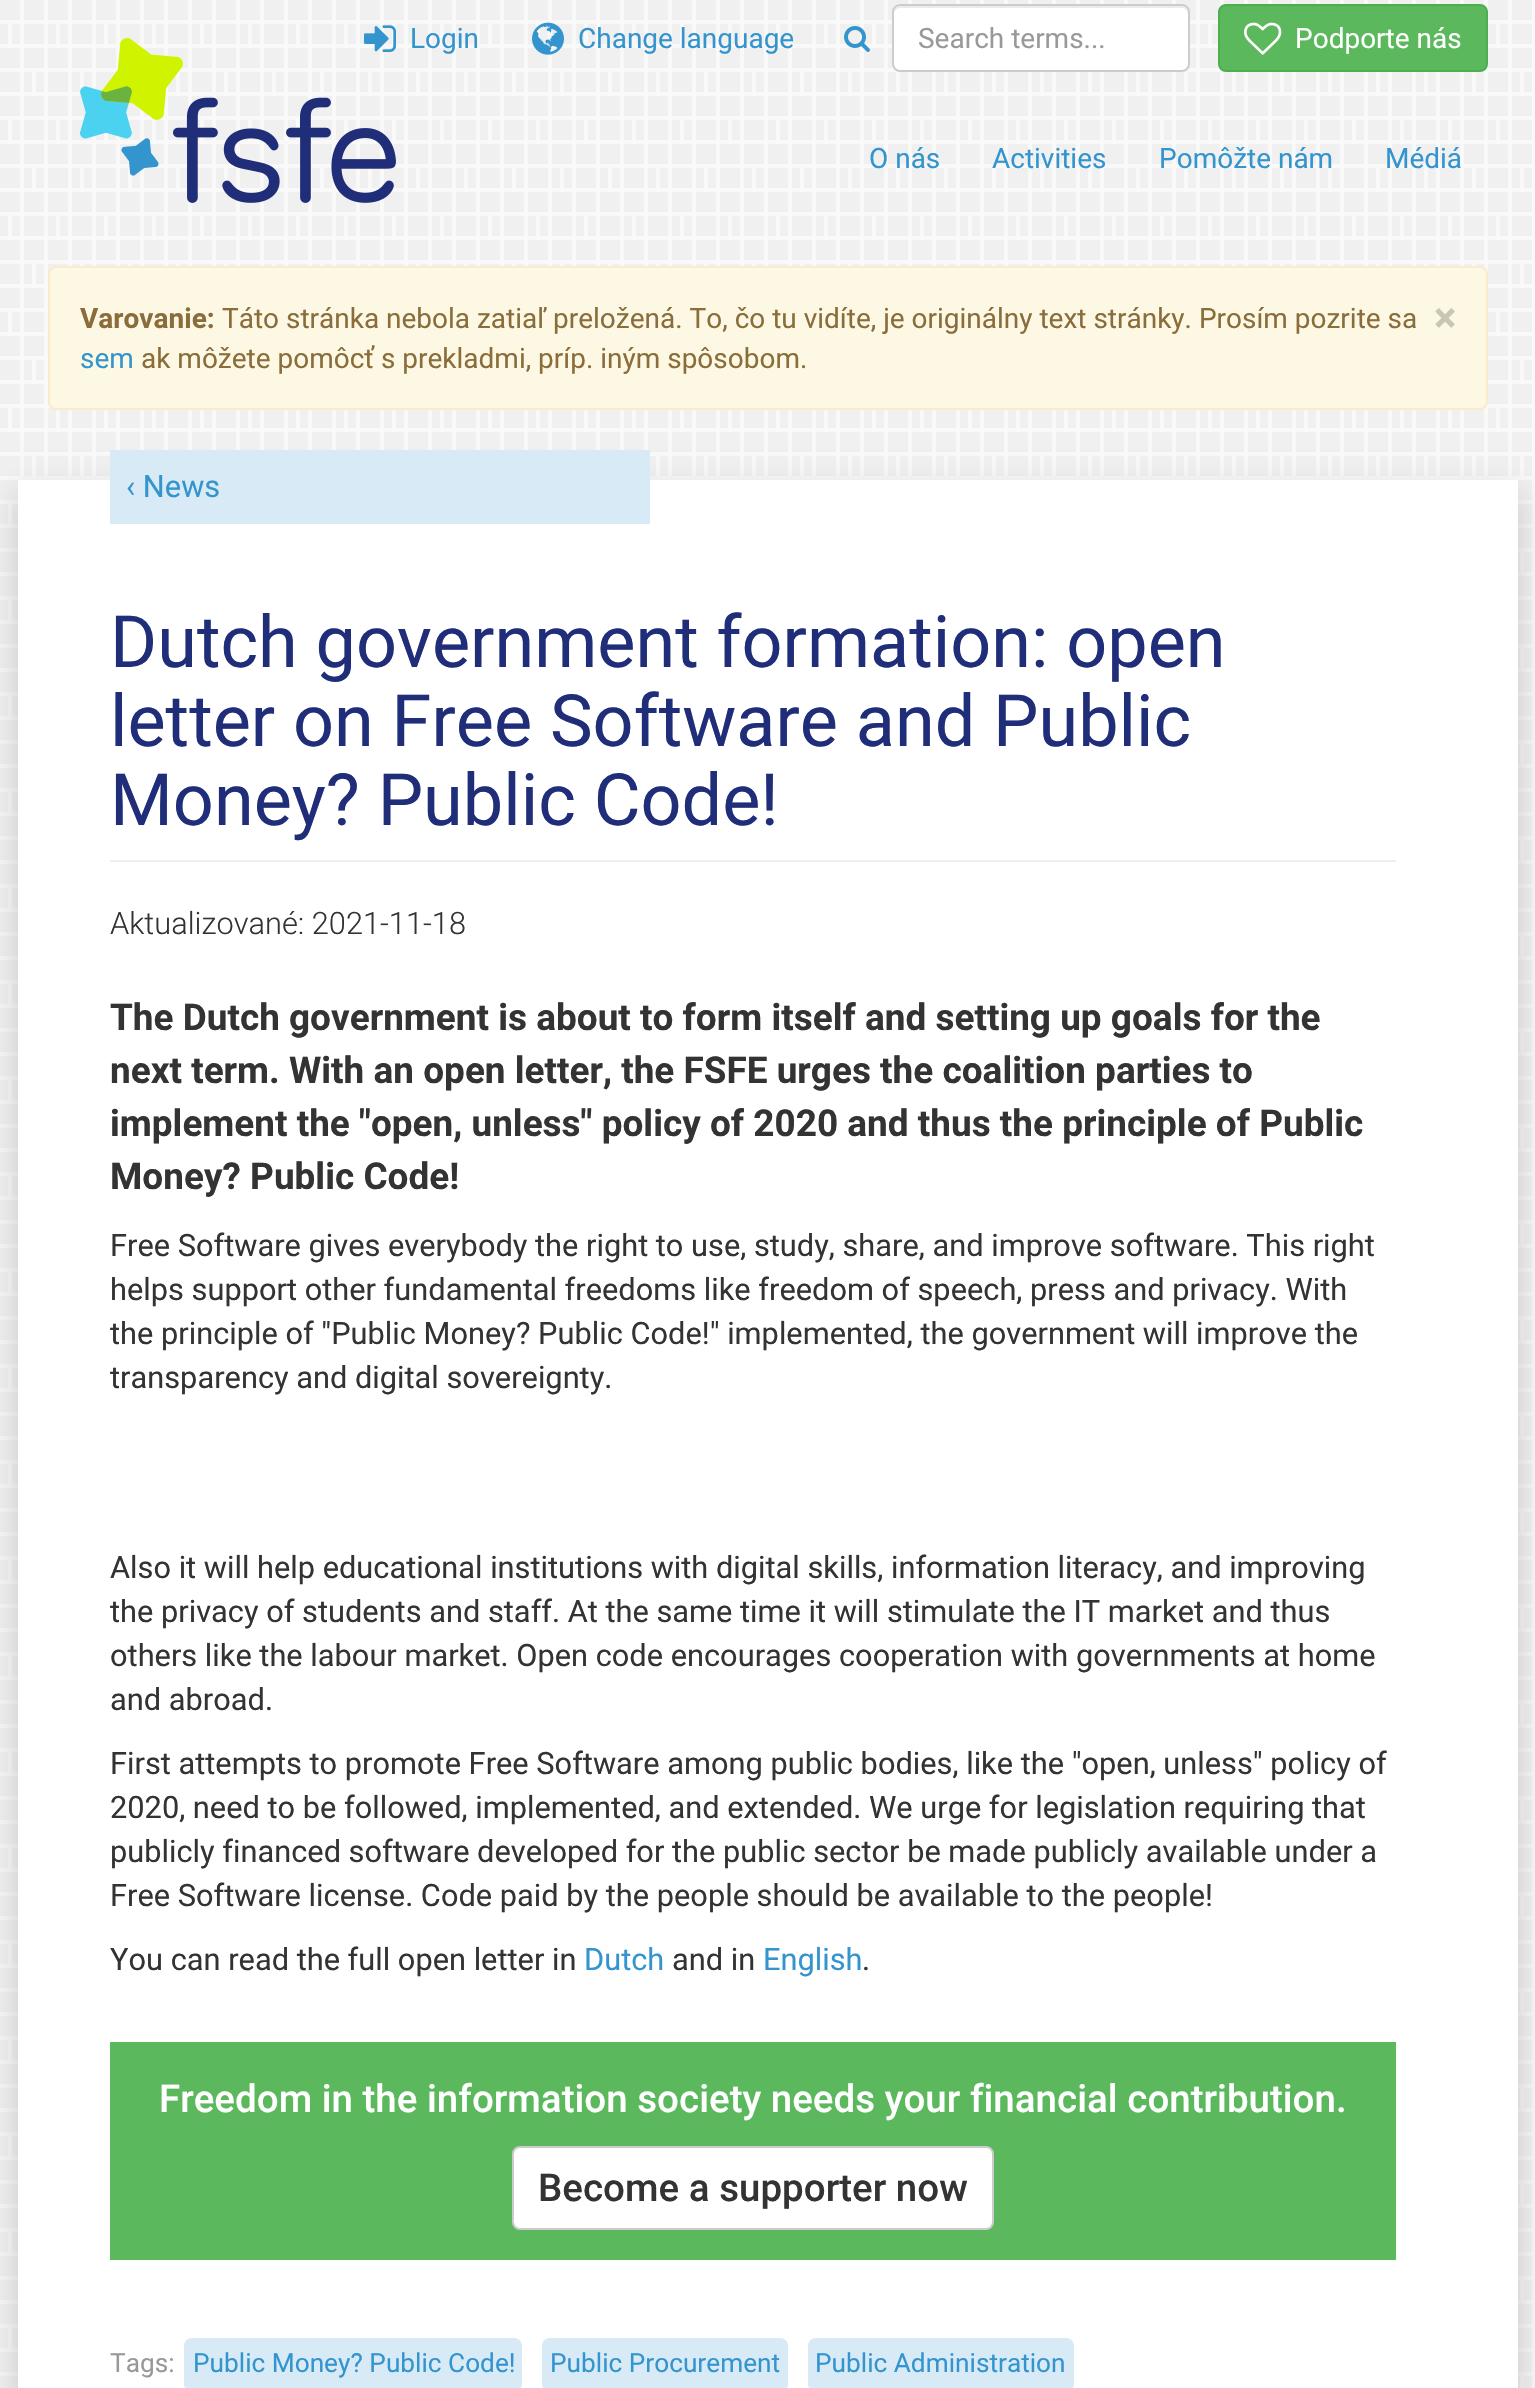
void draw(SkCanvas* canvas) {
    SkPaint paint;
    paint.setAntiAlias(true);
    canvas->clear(0xFFF9F9F9);
    canvas->drawImageRect(SkImages::DeferredFromEncodedData(SkData::MakeFromFileName("img1.png")), SkRect::MakeXYWH(0, 0, 1532, 2388), SkSamplingOptions());
    canvas->drawImageRect(SkImages::DeferredFromEncodedData(SkData::MakeFromFileName("img2.png")), SkRect::MakeXYWH(80, 38, 316, 165), SkSamplingOptions());
    canvas->drawImageRect(SkImages::DeferredFromEncodedData(SkData::MakeFromFileName("img3.png")), SkRect::MakeXYWH(364, 25, 32, 27), SkSamplingOptions());
    SkFont font1(fontMgr->matchFamilyStyle("Roboto", SkFontStyle::Normal()), 28);
    font1.setSubpixel(true);
    paint.setColor(0xFF3394CE);
    canvas->drawString("Login", 410, 48, font1, paint);
    canvas->drawImageRect(SkImages::DeferredFromEncodedData(SkData::MakeFromFileName("img4.png")), SkRect::MakeXYWH(532, 22, 32, 33), SkSamplingOptions());
    canvas->drawString("Change language", 578, 48, font1, paint);
    canvas->drawImageRect(SkImages::DeferredFromEncodedData(SkData::MakeFromFileName("img5.png")), SkRect::MakeXYWH(844, 26, 26, 26), SkSamplingOptions());
    paint.setColor(0xFFFFFFFF);
    canvas->drawRoundRect(SkRect::MakeXYWH(892, 4, 298, 68), 8, 8, paint);
    paint.setColor(0xFFECECEC);
    canvas->drawPath(SkPathBuilder().moveTo(900, 8).lineTo(1182, 8).cubicTo(1185, 8, 1188, 11, 1188, 14).lineTo(1188, 12).cubicTo(1188, 9, 1185, 6, 1182, 6).lineTo(900, 6).cubicTo(897, 6, 894, 9, 894, 12).lineTo(894, 14).cubicTo(894, 11, 897, 8, 900, 8).close().detach(), paint);
    paint.setStyle(SkPaint::kStroke_Style);
    paint.setStrokeWidth(2);
    paint.setColor(0xFFCCCCCC);
    canvas->drawRoundRect(SkRect::MakeXYWH(893, 5, 296, 66), 7, 7, paint);
    paint.setStyle(SkPaint::kFill_Style);
    paint.setColor(0xFF999999);
    canvas->drawString("Search terms...", 918, 48, font1, paint);
    paint.setColor(0xFF5CB85C);
    canvas->drawRoundRect(SkRect::MakeXYWH(1219, 5, 268, 66), 7, 7, paint);
    paint.setStyle(SkPaint::kStroke_Style);
    paint.setColor(0xFF4CAE4C);
    canvas->drawRoundRect(SkRect::MakeXYWH(1219, 5, 268, 66), 7, 7, paint);
    canvas->drawImageRect(SkImages::DeferredFromEncodedData(SkData::MakeFromFileName("img6.png")), SkRect::MakeXYWH(1244, 22, 38, 33), SkSamplingOptions());
    paint.setStyle(SkPaint::kFill_Style);
    paint.setColor(0xFFFFFFFF);
    canvas->drawString("Podporte nás", 1295, 48, font1, paint);
    paint.setColor(0xFF3394CE);
    canvas->drawString("O nás", 869, 168, font1, paint);
    canvas->drawString("Activities", 992, 168, font1, paint);
    canvas->drawString("Pomôžte nám", 1159, 168, font1, paint);
    canvas->drawString("Médiá", 1385, 168, font1, paint);
    paint.setColor(0xFFFCF8E3);
    canvas->drawRoundRect(SkRect::MakeXYWH(49, 267, 1438, 142), 7, 7, paint);
    paint.setStyle(SkPaint::kStroke_Style);
    paint.setColor(0xFFFAEBCC);
    canvas->drawRoundRect(SkRect::MakeXYWH(49, 267, 1438, 142), 7, 7, paint);
    SkFont font2(fontMgr->matchFamilyStyle("Roboto", SkFontStyle::Bold()), 28);
    font2.setSubpixel(true);
    paint.setStyle(SkPaint::kFill_Style);
    paint.setColor(0xFF8A6D3B);
    canvas->drawString("Varovanie:", 80, 328, font2, paint);
    canvas->drawString("Táto stránka nebola zatiaľ preložená. To, čo tu vidíte, je originálny text stránky. Prosím pozrite sa", 222, 328, font1, paint);
    paint.setColor(0xFF3394CE);
    canvas->drawString("sem", 80, 368, font1, paint);
    paint.setColor(0xFF8A6D3B);
    canvas->drawString("ak môžete pomôcť s prekladmi, príp. iným spôsobom.", 141, 368, font1, paint);
    SkFont font3(fontMgr->matchFamilyStyle("Roboto", SkFontStyle::Bold()), 42);
    font3.setSubpixel(true);
    paint.setColor(0xFFCAC6B6);
    canvas->drawString("×", 1434, 332, font3, paint);
    paint.setColor(0xFFC8C8C8);
    paint.setMaskFilter(SkMaskFilter::MakeBlur(kNormal_SkBlurStyle, 15.5f));
    canvas->drawRect(SkRect::MakeXYWH(18, 492, 1500, 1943), paint);
    paint.setMaskFilter(nullptr);
    paint.setColor(0xFFFFFFFF);
    canvas->drawRect(SkRect::MakeXYWH(18, 480, 1500, 1908), paint);
    paint.setColor(0xFFD7EAF6);
    canvas->drawRect(SkRect::MakeXYWH(110, 450, 540, 74), paint);
    SkFont font4(fontMgr->matchFamilyStyle("Roboto", SkFontStyle::Normal()), 30.8f);
    font4.setSubpixel(true);
    paint.setColor(0xFF3394CE);
    canvas->drawString("‹ News", 126, 497, font4, paint);
    paint.setColor(0xFFEEEEEE);
    canvas->drawRect(SkRect::MakeXYWH(110, 860, 1286, 2), paint);
    SkFont font5(fontMgr->matchFamilyStyle("Roboto", SkFontStyle::Normal()), 72);
    font5.setSubpixel(true);
    paint.setColor(0xFF202D79);
    canvas->drawString("Dutch government formation: open", 110, 667, font5, paint);
    canvas->drawString("letter on Free Software and Public", 110, 746, font5, paint);
    canvas->drawString("Money? Public Code!", 110, 825, font5, paint);
    SkFont font6(fontMgr->matchFamilyStyle("Roboto", SkFontStyle(300, SkFontStyle::kNormal_Width, SkFontStyle::kUpright_Slant)), 30.8f);
    font6.setSubpixel(true);
    paint.setColor(0xFF333333);
    canvas->drawString("Aktualizované: 2021-11-18", 110, 934, font6, paint);
    SkFont font7(fontMgr->matchFamilyStyle("Roboto", SkFontStyle::Bold()), 36.95f);
    font7.setSubpixel(true);
    canvas->drawString("The Dutch government is about to form itself and setting up goals for the", 110, 1030, font7, paint);
    canvas->drawString("next term. With an open letter, the FSFE urges the coalition parties to", 110, 1083, font7, paint);
    canvas->drawString("implement the \"open, unless\" policy of 2020 and thus the principle of Public", 110, 1136, font7, paint);
    canvas->drawString("Money? Public Code!", 110, 1189, font7, paint);
    canvas->drawString("Free Software gives everybody the right to use, study, share, and improve software. This right", 110, 1256, font4, paint);
    canvas->drawString("helps support other fundamental freedoms like freedom of speech, press and privacy. With", 110, 1300, font4, paint);
    canvas->drawString("the principle of \"Public Money? Public Code!\" implemented, the government will improve the", 110, 1344, font4, paint);
    canvas->drawString("transparency and digital sovereignty.", 110, 1388, font4, paint);
    canvas->drawString("Also it will help educational institutions with digital skills, information literacy, and improving", 110, 1578, font4, paint);
    canvas->drawString("the privacy of students and staff. At the same time it will stimulate the IT market and thus", 110, 1622, font4, paint);
    canvas->drawString("others like the labour market. Open code encourages cooperation with governments at home", 110, 1666, font4, paint);
    canvas->drawString("and abroad.", 110, 1710, font4, paint);
    canvas->drawString("First attempts to promote Free Software among public bodies, like the \"open, unless\" policy of", 110, 1774, font4, paint);
    canvas->drawString("2020, need to be followed, implemented, and extended. We urge for legislation requiring that", 110, 1818, font4, paint);
    canvas->drawString("publicly financed software developed for the public sector be made publicly available under a", 110, 1862, font4, paint);
    canvas->drawString("Free Software license. Code paid by the people should be available to the people!", 110, 1906, font4, paint);
    canvas->drawString("You can read the full open letter in", 110, 1970, font4, paint);
    paint.setColor(0xFF3394CE);
    canvas->drawString("Dutch", 584, 1970, font4, paint);
    paint.setColor(0xFF333333);
    canvas->drawString("and in", 672, 1970, font4, paint);
    paint.setColor(0xFF3394CE);
    canvas->drawString("English", 763, 1970, font4, paint);
    paint.setColor(0xFF333333);
    canvas->drawString(".", 862, 1970, font4, paint);
    paint.setColor(0xFF5CB85C);
    canvas->drawRect(SkRect::MakeXYWH(110, 2042, 1286, 218), paint);
    SkFont font8(fontMgr->matchFamilyStyle("Roboto", SkFontStyle(500, SkFontStyle::kNormal_Width, SkFontStyle::kUpright_Slant)), 38.5f);
    font8.setSubpixel(true);
    paint.setColor(0xFFFFFFFF);
    canvas->drawString("Freedom in the information society needs your financial contribution.", 159, 2112, font8, paint);
    canvas->drawRoundRect(SkRect::MakeXYWH(513, 2147, 480, 82), 7, 7, paint);
    paint.setStyle(SkPaint::kStroke_Style);
    paint.setColor(0xFFCCCCCC);
    canvas->drawRoundRect(SkRect::MakeXYWH(513, 2147, 480, 82), 7, 7, paint);
    paint.setStyle(SkPaint::kFill_Style);
    paint.setColor(0xFF333333);
    canvas->drawString("Become a supporter now", 538, 2201, font8, paint);
    SkFont font9(fontMgr->matchFamilyStyle("Roboto", SkFontStyle::Normal()), 26.25f);
    font9.setSubpixel(true);
    paint.setColor(0xFF999999);
    canvas->drawString("Tags:", 110, 2372, font9, paint);
    paint.setColor(0xFFD7EAF6);
    canvas->drawRoundRect(SkRect::MakeXYWH(184, 2338, 338, 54), 8, 8, paint);
    paint.setColor(0xFF3394CE);
    canvas->drawString("Public Money? Public Code!", 193, 2372, font9, paint);
    paint.setColor(0xFFD7EAF6);
    canvas->drawRoundRect(SkRect::MakeXYWH(542, 2338, 246, 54), 8, 8, paint);
    paint.setColor(0xFF3394CE);
    canvas->drawString("Public Procurement", 550, 2372, font9, paint);
    paint.setColor(0xFFD7EAF6);
    canvas->drawRoundRect(SkRect::MakeXYWH(808, 2338, 266, 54), 8, 8, paint);
    paint.setColor(0xFF3394CE);
    canvas->drawString("Public Administration", 815, 2372, font9, paint);
}
